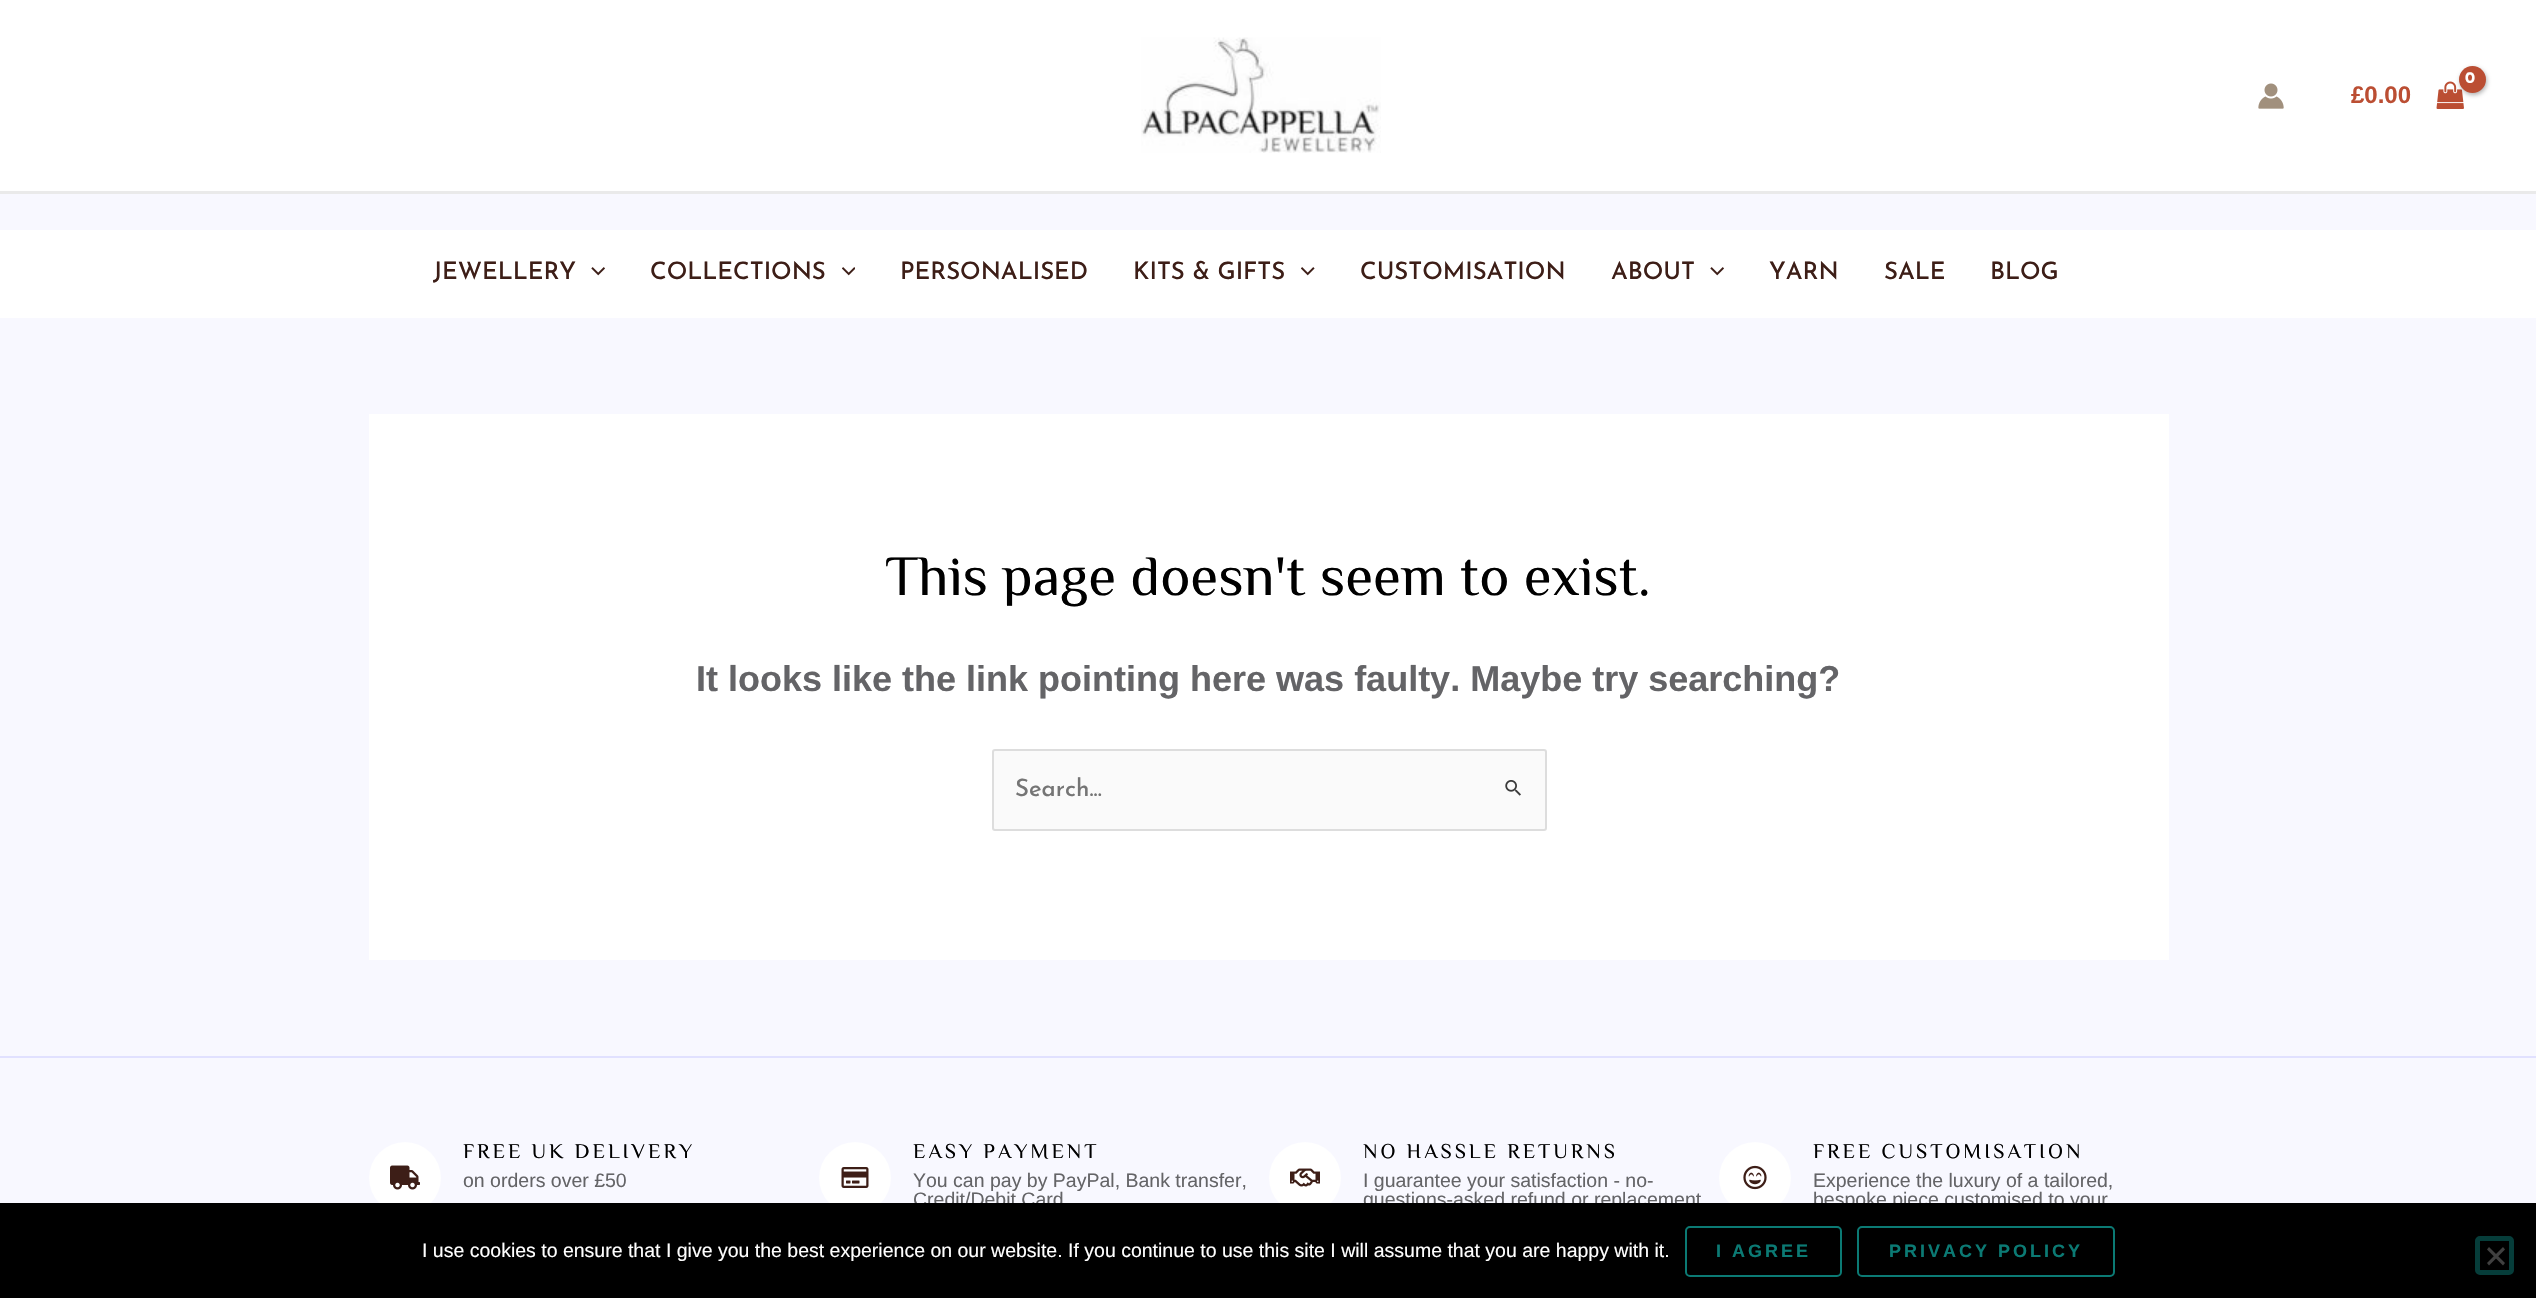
void draw(SkCanvas* canvas) {
    SkPaint paint;
    paint.setAntiAlias(true);
    auto spacedText = [&](const char* s, float x, float y, const SkFont& font, const SkPaint& ink, float letter, float word) {
        std::vector<SkGlyphID> glyphs(font.countText(s, strlen(s), SkTextEncoding::kUTF8));
        std::vector<float> xs(glyphs.size());
        font.textToGlyphs(s, strlen(s), SkTextEncoding::kUTF8, glyphs);
        font.getXPos(glyphs, xs, x);
        float extra = 0;
        for (size_t i = 0; i < glyphs.size(); i++) {
            xs[i] += extra;
            extra += letter + word * (glyphs[i] == font.unicharToGlyph(' '));
        }
        canvas->drawTextBlob(SkTextBlob::MakeFromPosHGlyphs(glyphs, xs, y, font), 0, 0, ink);
    };
    canvas->clear(0xFFF8F8FF);
    paint.setColor(0xFFFFFFFF);
    canvas->drawRect(SkRect::MakeXYWH(0, 0, 2536, 191), paint);
    paint.setColor(0xFFEAEAEA);
    canvas->drawRect(SkRect::MakeXYWH(0, 191, 2536, 3), paint);
    canvas->drawImageRect(SkImages::DeferredFromEncodedData(SkData::MakeFromFileName("img1.png")), SkRect::MakeXYWH(1141, 37, 240, 116), SkSamplingOptions());
    canvas->drawImageRect(SkImages::DeferredFromEncodedData(SkData::MakeFromFileName("img2.png")), SkRect::MakeXYWH(2258, 83, 26, 26), SkSamplingOptions());
    canvas->drawImageRect(SkImages::DeferredFromEncodedData(SkData::MakeFromFileName("img3.png")), SkRect::MakeXYWH(2436, 81, 28, 28), SkSamplingOptions());
    paint.setColor(0x4D000000);
    paint.setMaskFilter(SkMaskFilter::MakeBlur(kNormal_SkBlurStyle, 2));
    canvas->drawRoundRect(SkRect::MakeXYWH(2460, 68, 27, 27), 13.5f, 13.5f, paint);
    paint.setMaskFilter(nullptr);
    paint.setColor(0xFFBB4E33);
    canvas->drawCircle(2472.5f, 79.5f, 13.5f, paint);
    SkFont font1(fontMgr->matchFamilyStyle("Josefin Sans", SkFontStyle::Bold()), 16);
    font1.setSubpixel(true);
    paint.setColor(0xFFFFFFFF);
    spacedText("0", 2465, 83, font1, paint, -1, 0);
    SkFont font2(fontMgr->matchFamilyStyle("Liberation Sans", SkFontStyle::Bold()), 24);
    font2.setSubpixel(true);
    paint.setColor(0xFFBB4E33);
    canvas->drawString("£0.00", 2351, 103, font2, paint);
    paint.setColor(0xFFFFFFFF);
    canvas->drawRect(SkRect::MakeXYWH(0, 230, 2536, 88), paint);
    SkFont font3(fontMgr->matchFamilyStyle("Josefin Sans", SkFontStyle(500, SkFontStyle::kNormal_Width, SkFontStyle::kUpright_Slant)), 24);
    font3.setSubpixel(true);
    paint.setColor(0xFF3D1E17);
    canvas->drawString("JEWELLERY", 433, 279, font3, paint);
    canvas->drawImageRect(SkImages::DeferredFromEncodedData(SkData::MakeFromFileName("img4.png")), SkRect::MakeXYWH(591, 267, 14, 9), SkSamplingOptions());
    canvas->drawString("COLLECTIONS", 650, 279, font3, paint);
    canvas->drawImageRect(SkImages::DeferredFromEncodedData(SkData::MakeFromFileName("img5.png")), SkRect::MakeXYWH(842, 267, 13, 9), SkSamplingOptions());
    canvas->drawString("PERSONALISED", 900, 279, font3, paint);
    canvas->drawString("KITS & GIFTS", 1133, 279, font3, paint);
    canvas->drawImageRect(SkImages::DeferredFromEncodedData(SkData::MakeFromFileName("img6.png")), SkRect::MakeXYWH(1301, 267, 14, 9), SkSamplingOptions());
    canvas->drawString("CUSTOMISATION", 1360, 279, font3, paint);
    canvas->drawString("ABOUT", 1611, 279, font3, paint);
    canvas->drawImageRect(SkImages::DeferredFromEncodedData(SkData::MakeFromFileName("img4.png")), SkRect::MakeXYWH(1710, 267, 14, 9), SkSamplingOptions());
    canvas->drawString("YARN", 1769, 279, font3, paint);
    canvas->drawString("SALE", 1884, 279, font3, paint);
    canvas->drawString("BLOG", 1990, 279, font3, paint);
    paint.setColor(0xFFFFFFFF);
    canvas->drawRect(SkRect::MakeXYWH(369, 414, 1800, 546), paint);
    SkFont font4(fontMgr->matchFamilyStyle("El Messiri", SkFontStyle::Normal()), 57);
    font4.setSubpixel(true);
    paint.setColor(0xFF000000);
    canvas->drawString("This page doesn't seem to exist.", 885, 595, font4, paint);
    SkFont font5(fontMgr->matchFamilyStyle("Liberation Sans", SkFontStyle::Bold()), 36);
    font5.setSubpixel(true);
    paint.setColor(0xFF646467);
    canvas->drawString("It looks like the link pointing here was faulty. Maybe try searching?", 696, 691, font5, paint);
    paint.setColor(0xFFFAFAFA);
    canvas->drawRoundRect(SkRect::MakeXYWH(993, 750, 553, 80), 2, 2, paint);
    paint.setStyle(SkPaint::kStroke_Style);
    paint.setStrokeWidth(2);
    paint.setColor(0xFFDDDDDD);
    canvas->drawRoundRect(SkRect::MakeXYWH(993, 750, 553, 80), 2, 2, paint);
    paint.setStyle(SkPaint::kFill_Style);
    paint.setColor(0xFF757575);
    canvas->drawString("Search...", 1015, 796, font3, paint);
    canvas->drawImageRect(SkImages::DeferredFromEncodedData(SkData::MakeFromFileName("img7.png")), SkRect::MakeXYWH(1505, 780, 16, 16), SkSamplingOptions());
    paint.setColor(0xFFE1E1FF);
    canvas->drawRect(SkRect::MakeXYWH(0, 1056, 2536, 2), paint);
    paint.setColor(0xFFFFFFFF);
    canvas->drawCircle(405, 1178, 36, paint);
    canvas->drawImageRect(SkImages::DeferredFromEncodedData(SkData::MakeFromFileName("img8.png")), SkRect::MakeXYWH(390, 1165, 30, 25), SkSamplingOptions());
    SkFont font6(fontMgr->matchFamilyStyle("El Messiri", SkFontStyle::Normal()), 21);
    font6.setSubpixel(true);
    paint.setColor(0xFF000000);
    spacedText("FREE UK DELIVERY", 463, 1158, font6, paint, 3, 0);
    SkFont font7(fontMgr->matchFamilyStyle("Liberation Sans", SkFontStyle::Normal()), 19.5f);
    font7.setSubpixel(true);
    paint.setColor(0xFF646467);
    canvas->drawString("on orders over £50", 463, 1187, font7, paint);
    paint.setColor(0xFFFFFFFF);
    canvas->drawCircle(855, 1178, 36, paint);
    canvas->drawImageRect(SkImages::DeferredFromEncodedData(SkData::MakeFromFileName("img9.png")), SkRect::MakeXYWH(841, 1167, 28, 21), SkSamplingOptions());
    paint.setColor(0xFF000000);
    spacedText("EASY PAYMENT", 913, 1158, font6, paint, 3, 0);
    paint.setColor(0xFF646467);
    canvas->drawString("You can pay by PayPal, Bank transfer,", 913, 1187, font7, paint);
    canvas->drawString("Credit/Debit Card", 913, 1206, font7, paint);
    paint.setColor(0xFFFFFFFF);
    canvas->drawCircle(1305, 1178, 36, paint);
    canvas->drawImageRect(SkImages::DeferredFromEncodedData(SkData::MakeFromFileName("img10.png")), SkRect::MakeXYWH(1290, 1168, 30, 19), SkSamplingOptions());
    paint.setColor(0xFF000000);
    spacedText("NO HASSLE RETURNS", 1363, 1158, font6, paint, 3, 0);
    paint.setColor(0xFF646467);
    canvas->drawString("I guarantee your satisfaction - no-", 1363, 1187, font7, paint);
    canvas->drawString("questions-asked refund or replacement", 1363, 1206, font7, paint);
    paint.setColor(0xFFFFFFFF);
    canvas->drawCircle(1755, 1178, 36, paint);
    canvas->drawImageRect(SkImages::DeferredFromEncodedData(SkData::MakeFromFileName("img11.png")), SkRect::MakeXYWH(1743, 1165, 24, 25), SkSamplingOptions());
    paint.setColor(0xFF000000);
    spacedText("FREE CUSTOMISATION", 1813, 1158, font6, paint, 3, 0);
    paint.setColor(0xFF646467);
    canvas->drawString("Experience the luxury of a tailored,", 1813, 1187, font7, paint);
    canvas->drawString("bespoke piece customised to your", 1813, 1206, font7, paint);
    paint.setColor(0xFF000000);
    canvas->drawRect(SkRect::MakeXYWH(0, 1203, 2536, 95), paint);
    paint.setColor(0xFFFFFFFF);
    canvas->drawString("I use cookies to ensure that I give you the best experience on our website. If you continue to use this site I will assume that you are happy with it.", 422, 1257, font7, paint);
    paint.setStyle(SkPaint::kStroke_Style);
    paint.setColor(0xFF0B7A74);
    canvas->drawRoundRect(SkRect::MakeXYWH(1686, 1227, 155, 49), 4, 4, paint);
    SkFont font8(fontMgr->matchFamilyStyle("Liberation Sans", SkFontStyle::Bold()), 18);
    font8.setSubpixel(true);
    paint.setStyle(SkPaint::kFill_Style);
    spacedText("I AGREE", 1716, 1257, font8, paint, 3, 0);
    paint.setStyle(SkPaint::kStroke_Style);
    canvas->drawRoundRect(SkRect::MakeXYWH(1858, 1227, 256, 49), 4, 4, paint);
    paint.setStyle(SkPaint::kFill_Style);
    spacedText("PRIVACY POLICY", 1889, 1257, font8, paint, 3, 0);
    paint.setStyle(SkPaint::kStroke_Style);
    paint.setStrokeWidth(5);
    paint.setColor(0xFF063D3A);
    canvas->drawRoundRect(SkRect::MakeXYWH(2477.5f, 1238.5f, 34, 34), 2.5f, 2.5f, paint);
    paint.setStyle(SkPaint::kFill_Style);
    paint.setColor(0xFF404040);
    canvas->drawPath(SkPathBuilder().moveTo(2503, 1247).lineTo(2505, 1249.5f).lineTo(2489, 1265.5f).lineTo(2487, 1263).close().detach(), paint);
    canvas->drawPath(SkPathBuilder().moveTo(2487, 1249.5f).lineTo(2489, 1247).lineTo(2505, 1263).lineTo(2503, 1265.5f).close().detach(), paint);
}
